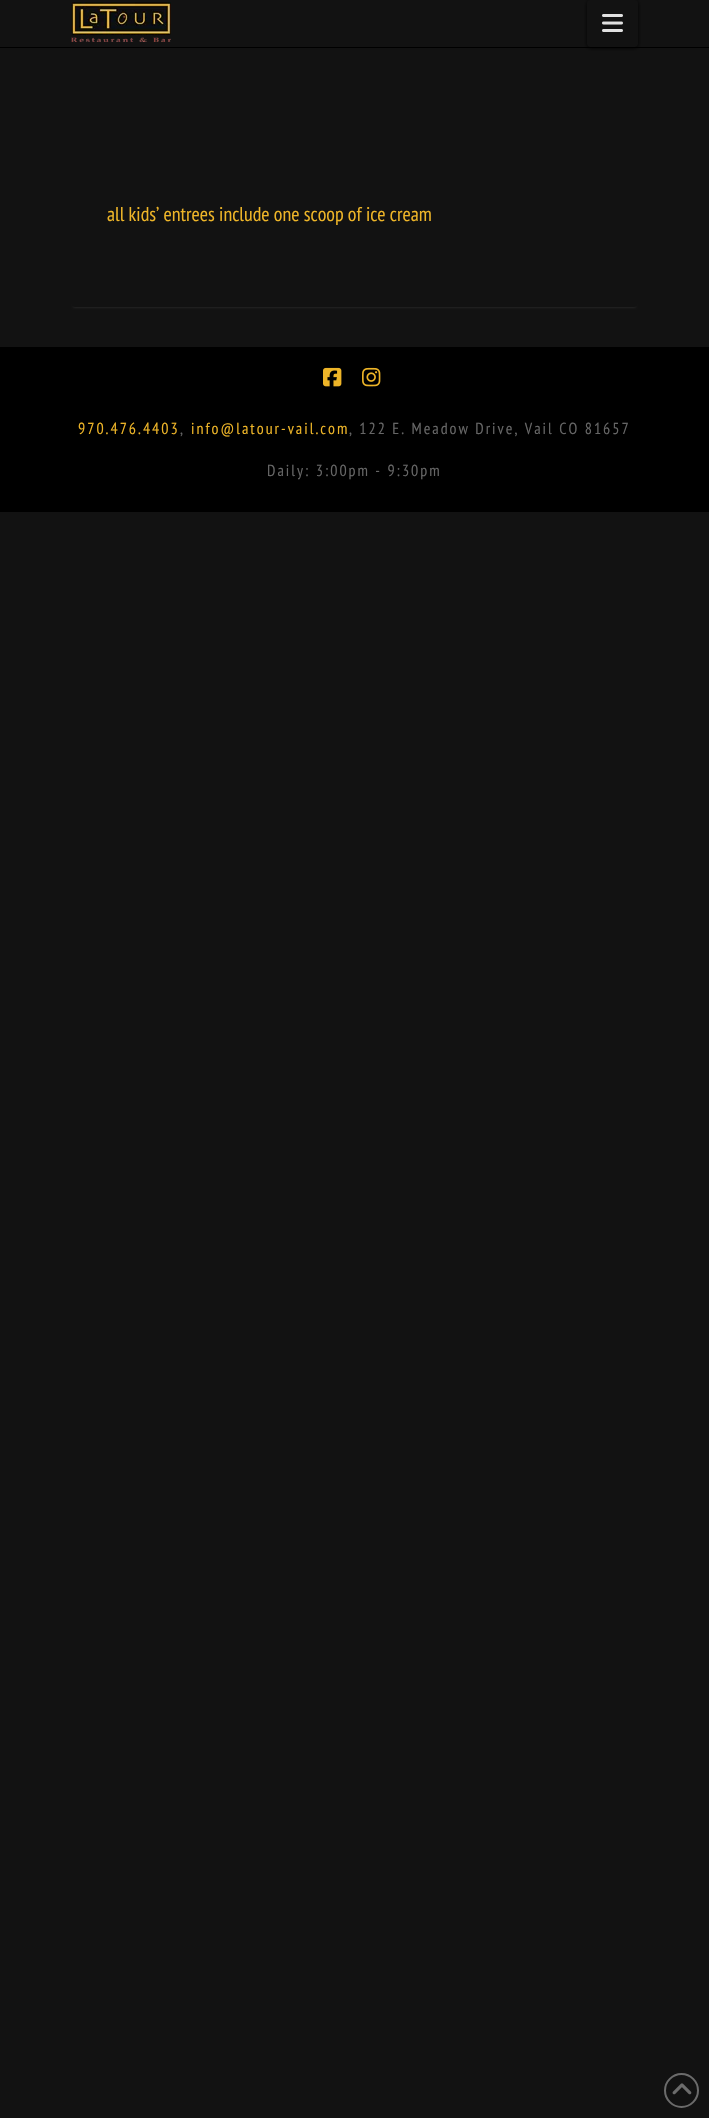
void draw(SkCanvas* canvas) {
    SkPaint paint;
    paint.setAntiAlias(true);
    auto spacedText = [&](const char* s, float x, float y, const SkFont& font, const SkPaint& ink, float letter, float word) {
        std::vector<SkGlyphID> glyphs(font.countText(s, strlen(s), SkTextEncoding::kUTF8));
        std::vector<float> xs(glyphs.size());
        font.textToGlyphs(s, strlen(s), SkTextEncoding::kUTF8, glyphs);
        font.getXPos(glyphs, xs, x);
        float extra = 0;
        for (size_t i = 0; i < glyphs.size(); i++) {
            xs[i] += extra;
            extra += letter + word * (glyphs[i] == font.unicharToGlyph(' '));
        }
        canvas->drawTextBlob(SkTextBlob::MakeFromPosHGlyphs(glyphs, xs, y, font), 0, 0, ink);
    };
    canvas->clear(0xFF121212);
    paint.setColor(0xFF000000);
    canvas->drawRect(SkRect::MakeXYWH(0, 47, 709, 1), paint);
    canvas->drawImageRect(SkImages::DeferredFromEncodedData(SkData::MakeFromFileName("img1.png")), SkRect::MakeXYWH(71, 2, 100, 40), SkSamplingOptions());
    paint.setMaskFilter(SkMaskFilter::MakeBlur(kNormal_SkBlurStyle, 2));
    canvas->drawRoundRect(SkRect::MakeXYWH(587, 1, 51, 47), 4, 4, paint);
    paint.setMaskFilter(nullptr);
    paint.setColor(0xFF121212);
    canvas->drawRoundRect(SkRect::MakeXYWH(587, 0, 51, 47), 4, 4, paint);
    canvas->drawImageRect(SkImages::DeferredFromEncodedData(SkData::MakeFromFileName("img2.png")), SkRect::MakeXYWH(602, 14, 21, 18), SkSamplingOptions());
    paint.setColor(0x12FFFFFF);
    paint.setMaskFilter(SkMaskFilter::MakeBlur(kNormal_SkBlurStyle, 1));
    canvas->drawRoundRect(SkRect::MakeXYWH(73, 93, 563, 215), 2, 2, paint);
    paint.setMaskFilter(nullptr);
    paint.setColor(0xFF121212);
    canvas->drawRoundRect(SkRect::MakeXYWH(71, 88, 567, 219), 4, 4, paint);
    SkFont font1(fontMgr->matchFamilyStyle("PT Sans Narrow", SkFontStyle::Normal()), 20);
    font1.setSubpixel(true);
    paint.setColor(0xFFEEB528);
    canvas->drawString("all kids’ entrees include one scoop of ice cream", 107, 221, font1, paint);
    paint.setColor(0xFF000000);
    canvas->drawRect(SkRect::MakeXYWH(0, 347, 709, 165), paint);
    canvas->drawImageRect(SkImages::DeferredFromEncodedData(SkData::MakeFromFileName("img3.png")), SkRect::MakeXYWH(323, 367, 19, 20), SkSamplingOptions());
    canvas->drawImageRect(SkImages::DeferredFromEncodedData(SkData::MakeFromFileName("img4.png")), SkRect::MakeXYWH(362, 367, 19, 20), SkSamplingOptions());
    SkFont font2(fontMgr->matchFamilyStyle("PT Sans Narrow", SkFontStyle::Normal()), 16);
    font2.setSubpixel(true);
    paint.setColor(0xFFEEB528);
    spacedText("970.476.4403", 78, 434, font2, paint, 2, 0);
    paint.setColor(0xFF666666);
    spacedText(",", 180, 434, font2, paint, 2, 0);
    paint.setColor(0xFFEEB528);
    spacedText("info@latour-vail.com", 191, 434, font2, paint, 2, 0);
    paint.setColor(0xFF666666);
    spacedText(", 122 E. Meadow Drive, Vail CO 81657", 349, 434, font2, paint, 2, 0);
    spacedText("Daily: 3:00pm - 9:30pm", 267, 476, font2, paint, 2, 0);
    paint.setStyle(SkPaint::kStroke_Style);
    paint.setStrokeWidth(2);
    paint.setColor(0xFF6B6B6B);
    canvas->drawCircle(681.5f, 2090.5f, 16.5f, paint);
    canvas->drawImageRect(SkImages::DeferredFromEncodedData(SkData::MakeFromFileName("img5.png")), SkRect::MakeXYWH(672, 2083, 20, 12), SkSamplingOptions());
}
